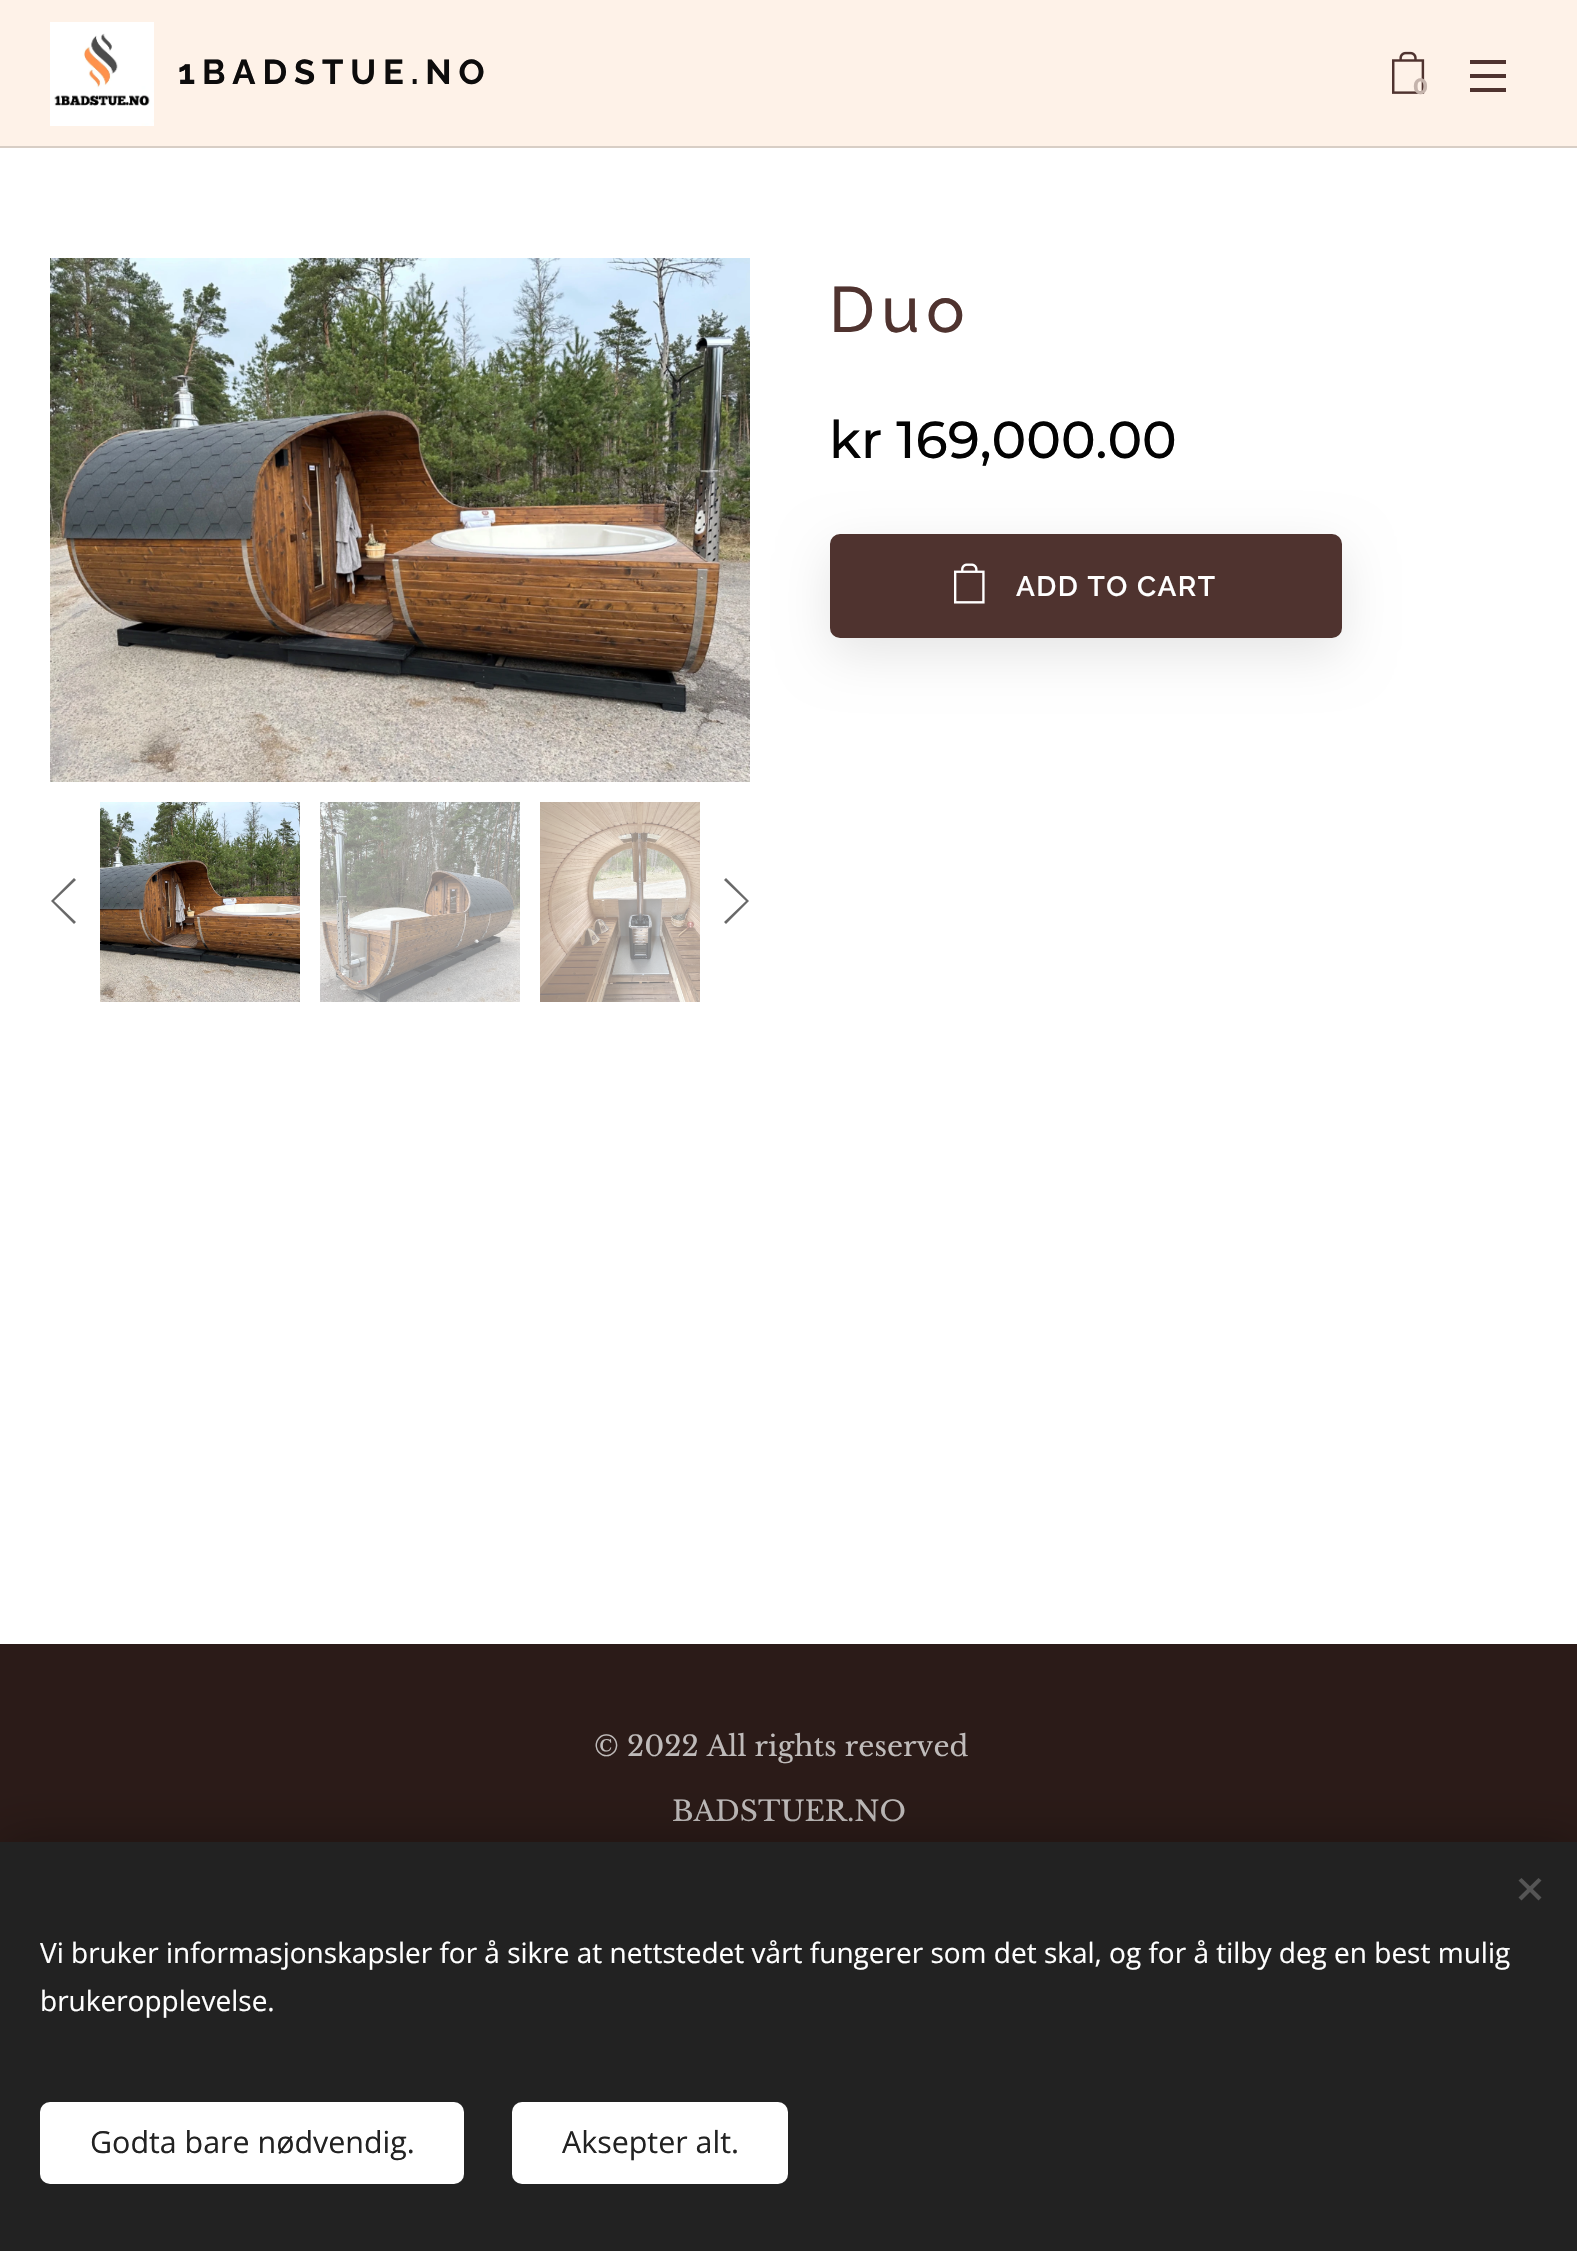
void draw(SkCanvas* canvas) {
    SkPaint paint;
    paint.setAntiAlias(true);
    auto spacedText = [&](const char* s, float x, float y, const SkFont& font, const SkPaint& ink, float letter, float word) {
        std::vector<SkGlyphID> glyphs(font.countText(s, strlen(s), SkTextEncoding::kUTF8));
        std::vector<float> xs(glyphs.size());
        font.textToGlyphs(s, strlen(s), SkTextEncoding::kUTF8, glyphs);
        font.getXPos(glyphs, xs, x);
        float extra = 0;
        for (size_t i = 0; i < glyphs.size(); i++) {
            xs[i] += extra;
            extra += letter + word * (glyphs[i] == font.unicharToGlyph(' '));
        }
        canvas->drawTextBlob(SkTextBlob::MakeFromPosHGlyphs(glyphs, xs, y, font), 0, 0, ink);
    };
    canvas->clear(0xFFFFFFFF);
    paint.setColor(0xFFFEF2E8);
    canvas->drawRect(SkRect::MakeXYWH(0, 0, 1577, 146), paint);
    canvas->drawImageRect(SkImages::DeferredFromEncodedData(SkData::MakeFromFileName("img1.png")), SkRect::MakeXYWH(50, 22, 104, 104), SkSamplingOptions());
    SkFont font1(fontMgr->matchFamilyStyle("Raleway", SkFontStyle::Bold()), 34.5f);
    font1.setSubpixel(true);
    paint.setColor(0xFF0D0C0C);
    spacedText("1BADSTUE.NO", 178, 84, font1, paint, 6.9f, 0);
    canvas->drawImageRect(SkImages::DeferredFromEncodedData(SkData::MakeFromFileName("img2.png")), SkRect::MakeXYWH(1392, 51, 33, 43), SkSamplingOptions());
    SkFont font2(fontMgr->matchFamilyStyle("Montserrat", SkFontStyle::Bold()), 22);
    font2.setSubpixel(true);
    paint.setColor(0xFFC5B4AC);
    canvas->drawString("0", 1413, 94, font2, paint);
    paint.setColor(0xFF4F332F);
    canvas->drawRect(SkRect::MakeXYWH(1470, 74, 36, 4), paint);
    canvas->drawRect(SkRect::MakeXYWH(1470, 60, 36, 4), paint);
    canvas->drawRect(SkRect::MakeXYWH(1470, 88, 36, 4), paint);
    paint.setColor(0xFFD8CEC5);
    canvas->drawRect(SkRect::MakeXYWH(0, 146, 1577, 2), paint);
    canvas->drawImageRect(SkImages::DeferredFromEncodedData(SkData::MakeFromFileName("img3.png")), SkRect::MakeXYWH(50, 258, 700, 524), SkSamplingOptions());
    paint.setColor(0xFF696969);
    canvas->drawPath(SkPathBuilder().moveTo(74, 924).lineTo(76, 922).lineTo(54, 901).lineTo(76, 880).lineTo(74, 878).lineTo(51, 901).close().detach(), paint);
    canvas->drawImageRect(SkImages::DeferredFromEncodedData(SkData::MakeFromFileName("img4.png")), SkRect::MakeXYWH(100, 802, 200, 200), SkSamplingOptions());
    canvas->drawImageRect(SkImages::DeferredFromEncodedData(SkData::MakeFromFileName("img5.png")), SkRect::MakeXYWH(320, 802, 200, 200), SkSamplingOptions());
    canvas->drawImageRect(SkImages::DeferredFromEncodedData(SkData::MakeFromFileName("img6.png")), SkRect::MakeXYWH(540, 802, 160, 200), SkSamplingOptions());
    canvas->drawPath(SkPathBuilder().moveTo(726, 878).lineTo(724, 880).lineTo(746, 901).lineTo(724, 922).lineTo(726, 924).lineTo(749, 901).close().detach(), paint);
    SkFont font3(fontMgr->matchFamilyStyle("Raleway", SkFontStyle(500, SkFontStyle::kNormal_Width, SkFontStyle::kUpright_Slant)), 64);
    font3.setSubpixel(true);
    paint.setColor(0xFF4F332F);
    spacedText("Duo", 829, 332, font3, paint, 6.5f, 0);
    SkFont font4(fontMgr->matchFamilyStyle("Montserrat", SkFontStyle(500, SkFontStyle::kNormal_Width, SkFontStyle::kUpright_Slant)), 52);
    font4.setSubpixel(true);
    paint.setColor(0xFF030303);
    canvas->drawString("kr 169,000.00", 829, 458, font4, paint);
    paint.setColor(0x1A000000);
    paint.setMaskFilter(SkMaskFilter::MakeBlur(kNormal_SkBlurStyle, 25));
    canvas->drawRoundRect(SkRect::MakeXYWH(830, 550, 512, 104), 10, 10, paint);
    paint.setMaskFilter(nullptr);
    paint.setColor(0xFF4F332F);
    canvas->drawRoundRect(SkRect::MakeXYWH(831, 535, 510, 102), 9, 9, paint);
    paint.setStyle(SkPaint::kStroke_Style);
    paint.setStrokeWidth(2);
    canvas->drawRoundRect(SkRect::MakeXYWH(831, 535, 510, 102), 9, 9, paint);
    canvas->drawImageRect(SkImages::DeferredFromEncodedData(SkData::MakeFromFileName("img7.png")), SkRect::MakeXYWH(954, 563, 31, 41), SkSamplingOptions());
    SkFont font5(fontMgr->matchFamilyStyle("Raleway", SkFontStyle(600, SkFontStyle::kNormal_Width, SkFontStyle::kUpright_Slant)), 28);
    font5.setSubpixel(true);
    paint.setStyle(SkPaint::kFill_Style);
    paint.setColor(0xFFFFFFFF);
    spacedText("ADD TO CART", 1016, 596, font5, paint, 1.4f, 0);
    paint.setColor(0xFF2B1B18);
    canvas->drawRect(SkRect::MakeXYWH(0, 1644, 1577, 198), paint);
    SkFont font6(fontMgr->matchFamilyStyle("Libre Baskerville", SkFontStyle::Normal()), 28);
    font6.setSubpixel(true);
    paint.setColor(0xFFBFBBBA);
    canvas->drawString("© 2022 All rights reserved", 594, 1756, font6, paint);
    canvas->drawString("BADSTUER.NO", 672, 1821, font6, paint);
    paint.setColor(0x54000000);
    paint.setMaskFilter(SkMaskFilter::MakeBlur(kNormal_SkBlurStyle, 25));
    canvas->drawRect(SkRect::MakeXYWH(0, 1842, 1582, 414), paint);
    paint.setMaskFilter(nullptr);
    paint.setColor(0xFF222222);
    canvas->drawRect(SkRect::MakeXYWH(0, 1842, 1577, 409), paint);
    paint.setColor(0xFF555555);
    canvas->drawPath(SkPathBuilder().moveTo(1518.5f, 1897.5f).lineTo(1538.5f, 1878).lineTo(1541.5f, 1880.5f).lineTo(1521.5f, 1900.5f).close().detach(), paint);
    canvas->drawPath(SkPathBuilder().moveTo(1521.5f, 1878).lineTo(1541.5f, 1897.5f).lineTo(1538.5f, 1900.5f).lineTo(1518.5f, 1880.5f).close().detach(), paint);
    SkFont font7(fontMgr->matchFamilyStyle("Open Sans", SkFontStyle::Normal()), 28);
    font7.setSubpixel(true);
    paint.setColor(0xFFFFFFFF);
    canvas->drawString("Vi bruker informasjonskapsler for å sikre at nettstedet vårt fungerer som det skal, og for å tilby deg en best mulig", 40, 1963, font7, paint);
    canvas->drawString("brukeropplevelse.", 40, 2011, font7, paint);
    canvas->drawRoundRect(SkRect::MakeXYWH(40, 2102, 424, 82), 10, 10, paint);
    SkFont font8(fontMgr->matchFamilyStyle("Open Sans", SkFontStyle::Normal()), 30.4f);
    font8.setSubpixel(true);
    paint.setColor(0xFF222222);
    canvas->drawString("Godta bare nødvendig.", 90, 2153, font8, paint);
    paint.setColor(0xFFFFFFFF);
    canvas->drawRoundRect(SkRect::MakeXYWH(512, 2102, 276, 82), 10, 10, paint);
    paint.setColor(0xFF222222);
    canvas->drawString("Aksepter alt.", 562, 2153, font8, paint);
}
